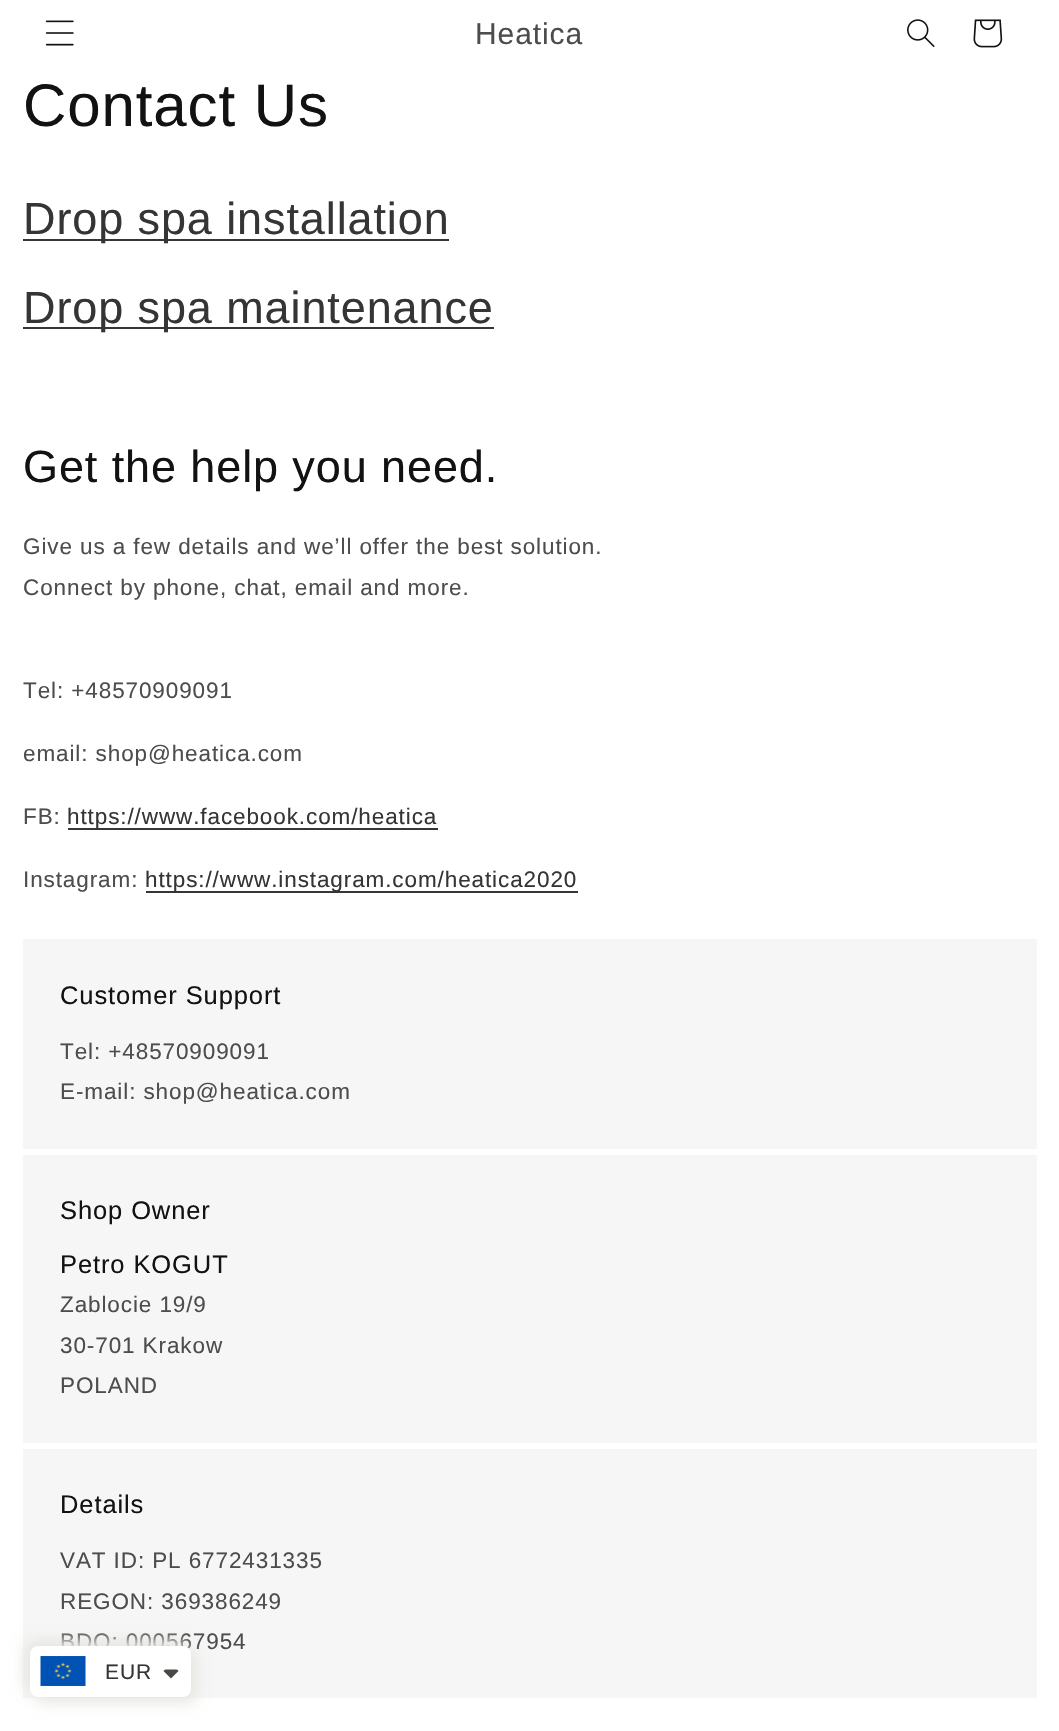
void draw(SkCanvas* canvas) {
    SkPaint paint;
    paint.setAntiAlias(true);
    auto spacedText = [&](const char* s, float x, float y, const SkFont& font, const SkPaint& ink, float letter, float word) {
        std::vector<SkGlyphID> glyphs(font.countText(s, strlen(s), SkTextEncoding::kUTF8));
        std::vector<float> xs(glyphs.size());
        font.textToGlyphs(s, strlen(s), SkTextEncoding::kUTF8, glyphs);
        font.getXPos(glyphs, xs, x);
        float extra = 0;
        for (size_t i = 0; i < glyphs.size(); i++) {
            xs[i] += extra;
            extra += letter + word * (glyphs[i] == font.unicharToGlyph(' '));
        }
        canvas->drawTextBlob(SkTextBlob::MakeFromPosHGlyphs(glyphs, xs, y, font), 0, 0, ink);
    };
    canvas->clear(0xFFFFFFFF);
    canvas->drawImageRect(SkImages::DeferredFromEncodedData(SkData::MakeFromFileName("img1.png")), SkRect::MakeXYWH(45, 20, 29, 26), SkSamplingOptions());
    SkFont font1(fontMgr->matchFamilyStyle("Liberation Sans", SkFontStyle::Normal()), 30);
    font1.setSubpixel(true);
    paint.setColor(0xFF4D4D4D);
    spacedText("Heatica", 475, 44, font1, paint, 0.9f, 0);
    canvas->drawImageRect(SkImages::DeferredFromEncodedData(SkData::MakeFromFileName("img2.png")), SkRect::MakeXYWH(907, 19, 28, 28), SkSamplingOptions());
    canvas->drawImageRect(SkImages::DeferredFromEncodedData(SkData::MakeFromFileName("img3.png")), SkRect::MakeXYWH(973, 19, 30, 29), SkSamplingOptions());
    SkFont font2(fontMgr->matchFamilyStyle("Liberation Sans", SkFontStyle::Normal()), 60);
    font2.setSubpixel(true);
    paint.setColor(0xFF121212);
    spacedText("Contact Us", 23, 126, font2, paint, 0.9f, 0);
    paint.setColor(0xFF363636);
    canvas->drawRect(SkRect::MakeXYWH(23, 239, 426, 2), paint);
    SkFont font3(fontMgr->matchFamilyStyle("Liberation Sans", SkFontStyle::Normal()), 45);
    font3.setSubpixel(true);
    paint.setColor(0xFF353535);
    spacedText("Drop spa installation", 23, 234, font3, paint, 0.9f, 0);
    paint.setColor(0xFF363636);
    canvas->drawRect(SkRect::MakeXYWH(23, 327, 471, 2), paint);
    paint.setColor(0xFF353535);
    spacedText("Drop spa maintenance", 23, 323, font3, paint, 0.9f, 0);
    paint.setColor(0xFF121212);
    spacedText("Get the help you need.", 23, 482, font3, paint, 0.9f, 0);
    SkFont font4(fontMgr->matchFamilyStyle("Liberation Sans", SkFontStyle::Normal()), 22.5f);
    font4.setSubpixel(true);
    paint.setColor(0xFF4D4D4D);
    spacedText("Give us a few details and we’ll offer the best solution.", 23, 554, font4, paint, 0.9f, 0);
    spacedText("Connect by phone, chat, email and more.", 23, 595, font4, paint, 0.9f, 0);
    spacedText("Tel: +48570909091", 23, 698, font4, paint, 0.9f, 0);
    spacedText("email: shop@heatica.com", 23, 761, font4, paint, 0.9f, 0);
    spacedText("FB:", 23, 824, font4, paint, 0.9f, 0);
    paint.setColor(0xFF363636);
    canvas->drawRect(SkRect::MakeXYWH(68, 828, 370, 2), paint);
    paint.setColor(0xFF353535);
    spacedText("https://www.facebook.com/heatica", 67, 824, font4, paint, 0.9f, 0);
    paint.setColor(0xFF4D4D4D);
    spacedText("Instagram:", 23, 887, font4, paint, 0.9f, 0);
    paint.setColor(0xFF363636);
    canvas->drawRect(SkRect::MakeXYWH(146, 891, 432, 2), paint);
    paint.setColor(0xFF353535);
    spacedText("https://www.instagram.com/heatica2020", 145, 887, font4, paint, 0.9f, 0);
    paint.setColor(0xFFF6F6F6);
    canvas->drawRect(SkRect::MakeXYWH(23, 939, 1014, 210), paint);
    SkFont font5(fontMgr->matchFamilyStyle("Liberation Sans", SkFontStyle::Normal()), 25.5f);
    font5.setSubpixel(true);
    paint.setColor(0xFF121212);
    spacedText("Customer Support", 60, 1004, font5, paint, 0.9f, 0);
    paint.setColor(0xFF4D4D4D);
    spacedText("Tel: +48570909091", 60, 1059, font4, paint, 0.9f, 0);
    spacedText("E-mail: shop@heatica.com", 60, 1099, font4, paint, 0.9f, 0);
    paint.setColor(0xFFF6F6F6);
    canvas->drawRect(SkRect::MakeXYWH(23, 1155, 1014, 288), paint);
    paint.setColor(0xFF121212);
    spacedText("Shop Owner", 60, 1219, font5, paint, 0.9f, 0);
    spacedText("Petro KOGUT", 60, 1273, font5, paint, 0.9f, 0);
    paint.setColor(0xFF4D4D4D);
    spacedText("Zablocie 19/9", 60, 1312, font4, paint, 0.9f, 0);
    spacedText("30-701 Krakow", 60, 1353, font4, paint, 0.9f, 0);
    spacedText("POLAND", 60, 1393, font4, paint, 0.9f, 0);
    paint.setColor(0xFFF6F6F6);
    canvas->drawRect(SkRect::MakeXYWH(23, 1449, 1014, 249), paint);
    paint.setColor(0xFF121212);
    spacedText("Details", 60, 1513, font5, paint, 0.9f, 0);
    paint.setColor(0xFF4D4D4D);
    spacedText("VAT ID: PL 6772431335", 60, 1568, font4, paint, 0.9f, 0);
    spacedText("REGON: 369386249", 60, 1609, font4, paint, 0.9f, 0);
    spacedText("BDO: 000567954", 60, 1649, font4, paint, 0.9f, 0);
    paint.setColor(0xFFE8E8E2);
    paint.setMaskFilter(SkMaskFilter::MakeBlur(kNormal_SkBlurStyle, 7));
    canvas->drawRoundRect(SkRect::MakeXYWH(24, 1640, 161, 51), 8, 8, paint);
    paint.setMaskFilter(nullptr);
    paint.setMaskFilter(SkMaskFilter::MakeBlur(kNormal_SkBlurStyle, 7));
    canvas->drawRoundRect(SkRect::MakeXYWH(36, 1652, 161, 51), 8, 8, paint);
    paint.setMaskFilter(nullptr);
    paint.setColor(0xFFFFFFFF);
    canvas->drawRoundRect(SkRect::MakeXYWH(30, 1646, 161, 51), 8, 8, paint);
    canvas->drawImageRect(SkImages::DeferredFromEncodedData(SkData::MakeFromFileName("img4.png")), SkRect::MakeXYWH(40, 1656, 46, 30), SkSamplingOptions());
    SkFont font6(fontMgr->matchFamilyStyle("Liberation Sans", SkFontStyle::Normal()), 21);
    font6.setSubpixel(true);
    paint.setColor(0xFF353535);
    spacedText("EUR", 105, 1679, font6, paint, 0.9f, 0);
    paint.setColor(0xFF474942);
    canvas->drawPath(SkPathBuilder().moveTo(166.5f, 1669.5f).cubicTo(165, 1669.5f, 164, 1670, 163.5f, 1671).lineTo(171, 1678.5f).lineTo(178.5f, 1671).cubicTo(178, 1670, 177, 1669.5f, 175.5f, 1669.5f).close().detach(), paint);
}
